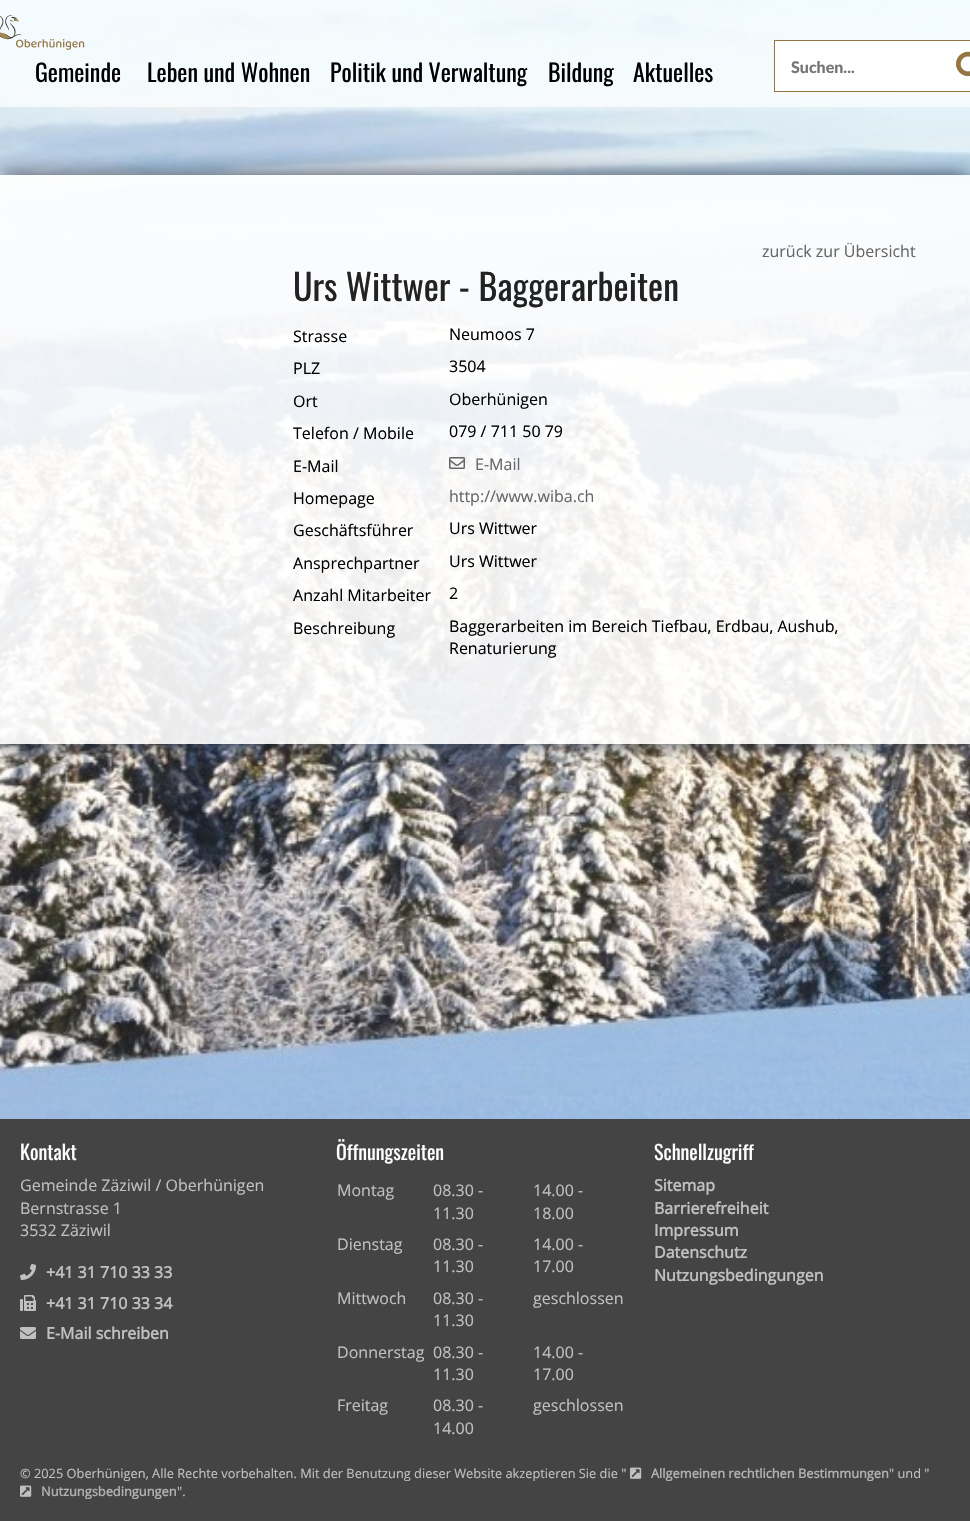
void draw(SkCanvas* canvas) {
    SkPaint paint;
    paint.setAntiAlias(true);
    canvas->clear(0xFFFFFFFF);
    canvas->drawImageRect(SkImages::DeferredFromEncodedData(SkData::MakeFromFileName("img1.png")), SkRect::MakeXYWH(0, 0, 970, 1119), SkSamplingOptions());
    paint.setColor(0xA6FFFFFF);
    canvas->drawRect(SkRect::MakeXYWH(0, 0, 970, 107), paint);
    canvas->drawImageRect(SkImages::DeferredFromEncodedData(SkData::MakeFromFileName("img2.png")), SkRect::MakeXYWH(0, 15, 85, 35), SkSamplingOptions());
    SkFont font1(fontMgr->matchFamilyStyle("Oswald", SkFontStyle::Normal()), 24);
    font1.setSubpixel(true);
    paint.setColor(0xFF000000);
    canvas->drawString("Gemeinde", 35, 82, font1, paint);
    canvas->drawString("Leben und Wohnen", 147, 82, font1, paint);
    canvas->drawString("Politik und Verwaltung", 330, 82, font1, paint);
    canvas->drawString("Bildung", 548, 82, font1, paint);
    canvas->drawString("Aktuelles", 633, 82, font1, paint);
    paint.setStyle(SkPaint::kStroke_Style);
    paint.setStrokeWidth(1);
    paint.setColor(0xFF937643);
    canvas->drawRect(SkRect::MakeXYWH(774.5f, 40.5f, 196, 51), paint);
    paint.setStyle(SkPaint::kFill_Style);
    paint.setColor(0xFFFFFFFF);
    canvas->drawRect(SkRect::MakeXYWH(775, 41, 195, 50), paint);
    SkFont font2(fontMgr->matchFamilyStyle("Lato", SkFontStyle(900, SkFontStyle::kNormal_Width, SkFontStyle::kUpright_Slant)), 16);
    font2.setSubpixel(true);
    paint.setColor(0xFF757575);
    canvas->drawString("Suchen...", 791, 73, font2, paint);
    canvas->drawImageRect(SkImages::DeferredFromEncodedData(SkData::MakeFromFileName("img3.png")), SkRect::MakeXYWH(956, 51, 14, 26), SkSamplingOptions());
    canvas->save();
    canvas->clipPath(SkPathBuilder(SkPathFillType::kEvenOdd).moveTo(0, 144).lineTo(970, 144).lineTo(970, 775).lineTo(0, 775).close().moveTo(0, 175).lineTo(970, 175).lineTo(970, 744).lineTo(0, 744).close().detach(), true);
    paint.setColor(0xD6162136);
    paint.setMaskFilter(SkMaskFilter::MakeBlur(kNormal_SkBlurStyle, 10));
    canvas->drawRect(SkRect::MakeXYWH(0, 175, 970, 569), paint);
    paint.setMaskFilter(nullptr);
    canvas->restore();
    paint.setColor(0xE6FFFFFF);
    canvas->drawRect(SkRect::MakeXYWH(0, 175, 970, 569), paint);
    SkFont font3(fontMgr->matchFamilyStyle("Open Sans", SkFontStyle::Normal()), 16);
    font3.setSubpixel(true);
    paint.setColor(0xFF666666);
    canvas->drawString("zurück zur Übersicht", 762, 257, font3, paint);
    SkFont font4(fontMgr->matchFamilyStyle("Oswald", SkFontStyle::Normal()), 36);
    font4.setSubpixel(true);
    paint.setColor(0xFF222222);
    canvas->drawString("Urs Wittwer - Baggerarbeiten", 293, 301, font4, paint);
    paint.setColor(0xFF000000);
    canvas->drawString("Strasse", 293, 342, font3, paint);
    canvas->drawString("Neumoos 7", 449, 340, font3, paint);
    canvas->drawString("PLZ", 293, 374, font3, paint);
    canvas->drawString("3504", 449, 372, font3, paint);
    canvas->drawString("Ort", 293, 407, font3, paint);
    canvas->drawString("Oberhünigen", 449, 405, font3, paint);
    canvas->drawString("Telefon / Mobile", 293, 439, font3, paint);
    canvas->drawString("079 / 711 50 79", 449, 437, font3, paint);
    canvas->drawString("E-Mail", 293, 472, font3, paint);
    canvas->drawImageRect(SkImages::DeferredFromEncodedData(SkData::MakeFromFileName("img4.png")), SkRect::MakeXYWH(449, 457, 16, 12), SkSamplingOptions());
    paint.setColor(0xFF666666);
    canvas->drawString("E-Mail", 475, 470, font3, paint);
    paint.setColor(0xFF000000);
    canvas->drawString("Homepage", 293, 504, font3, paint);
    paint.setColor(0xFF666666);
    canvas->drawString("http://www.wiba.ch", 449, 502, font3, paint);
    paint.setColor(0xFF000000);
    canvas->drawString("Geschäftsführer", 293, 536, font3, paint);
    canvas->drawString("Urs Wittwer", 449, 534, font3, paint);
    canvas->drawString("Ansprechpartner", 293, 569, font3, paint);
    canvas->drawString("Urs Wittwer", 449, 567, font3, paint);
    canvas->drawString("Anzahl Mitarbeiter", 293, 601, font3, paint);
    canvas->drawString("2", 449, 599, font3, paint);
    canvas->drawString("Beschreibung", 293, 634, font3, paint);
    canvas->drawString("Baggerarbeiten im Bereich Tiefbau, Erdbau, Aushub,", 449, 632, font3, paint);
    canvas->drawString("Renaturierung", 449, 654, font3, paint);
    paint.setColor(0xFF444444);
    canvas->drawRect(SkRect::MakeXYWH(0, 1119, 970, 402), paint);
    SkFont font5(fontMgr->matchFamilyStyle("Oswald", SkFontStyle::Normal()), 20);
    font5.setSubpixel(true);
    paint.setColor(0xFFFFFFFF);
    canvas->drawString("Kontakt", 20, 1160, font5, paint);
    paint.setColor(0xFFC0C0C0);
    canvas->drawString("Gemeinde Zäziwil / Oberhünigen", 20, 1191, font3, paint);
    canvas->drawString("Bernstrasse 1", 20, 1214, font3, paint);
    canvas->drawString("3532 Zäziwil", 20, 1236, font3, paint);
    canvas->drawImageRect(SkImages::DeferredFromEncodedData(SkData::MakeFromFileName("img5.png")), SkRect::MakeXYWH(20, 1264, 16, 16), SkSamplingOptions());
    SkFont font6(fontMgr->matchFamilyStyle("Open Sans", SkFontStyle::Bold()), 16);
    font6.setSubpixel(true);
    canvas->drawString("+41 31 710 33 33", 46, 1278, font6, paint);
    canvas->drawImageRect(SkImages::DeferredFromEncodedData(SkData::MakeFromFileName("img6.png")), SkRect::MakeXYWH(20, 1295, 16, 16), SkSamplingOptions());
    canvas->drawString("+41 31 710 33 34", 46, 1309, font6, paint);
    canvas->drawImageRect(SkImages::DeferredFromEncodedData(SkData::MakeFromFileName("img7.png")), SkRect::MakeXYWH(20, 1327, 16, 12), SkSamplingOptions());
    canvas->drawString("E-Mail schreiben", 46, 1339, font6, paint);
    paint.setColor(0xFFFFFFFF);
    canvas->drawString("Öffnungszeiten", 336, 1160, font5, paint);
    paint.setColor(0xFFC0C0C0);
    canvas->drawString("Montag", 337, 1196, font3, paint);
    canvas->drawString("08.30 -", 433, 1196, font3, paint);
    canvas->drawString("11.30", 433, 1219, font3, paint);
    canvas->drawString("14.00 -", 533, 1196, font3, paint);
    canvas->drawString("18.00", 533, 1219, font3, paint);
    canvas->drawString("Dienstag", 337, 1250, font3, paint);
    canvas->drawString("08.30 -", 433, 1250, font3, paint);
    canvas->drawString("11.30", 433, 1272, font3, paint);
    canvas->drawString("14.00 -", 533, 1250, font3, paint);
    canvas->drawString("17.00", 533, 1272, font3, paint);
    canvas->drawString("Mittwoch", 337, 1304, font3, paint);
    canvas->drawString("08.30 -", 433, 1304, font3, paint);
    canvas->drawString("11.30", 433, 1326, font3, paint);
    canvas->drawString("geschlossen", 533, 1304, font3, paint);
    canvas->drawString("Donnerstag", 337, 1358, font3, paint);
    canvas->drawString("08.30 -", 433, 1358, font3, paint);
    canvas->drawString("11.30", 433, 1380, font3, paint);
    canvas->drawString("14.00 -", 533, 1358, font3, paint);
    canvas->drawString("17.00", 533, 1380, font3, paint);
    canvas->drawString("Freitag", 337, 1411, font3, paint);
    canvas->drawString("08.30 -", 433, 1411, font3, paint);
    canvas->drawString("14.00", 433, 1434, font3, paint);
    canvas->drawString("geschlossen", 533, 1411, font3, paint);
    paint.setColor(0xFFFFFFFF);
    canvas->drawString("Schnellzugriff", 654, 1160, font5, paint);
    paint.setColor(0xFFC0C0C0);
    canvas->drawString("Sitemap", 654, 1191, font6, paint);
    canvas->drawString("Barrierefreiheit", 654, 1214, font6, paint);
    canvas->drawString("Impressum", 654, 1236, font6, paint);
    canvas->drawString("Datenschutz", 654, 1258, font6, paint);
    canvas->drawString("Nutzungsbedingungen", 654, 1281, font6, paint);
    SkFont font7(fontMgr->matchFamilyStyle("Open Sans", SkFontStyle::Normal()), 12.8f);
    font7.setSubpixel(true);
    canvas->drawString("© 2025 Oberhünigen, Alle Rechte vorbehalten. Mit der Benutzung dieser Website akzeptieren Sie die \"", 20, 1478, font7, paint);
    canvas->drawImageRect(SkImages::DeferredFromEncodedData(SkData::MakeFromFileName("img8.png")), SkRect::MakeXYWH(630, 1467, 12, 12), SkSamplingOptions());
    SkFont font8(fontMgr->matchFamilyStyle("Open Sans", SkFontStyle::Bold()), 12.8f);
    font8.setSubpixel(true);
    paint.setColor(0xFFB0B0B0);
    canvas->drawString("Allgemeinen rechtlichen Bestimmungen", 651, 1478, font8, paint);
    paint.setColor(0xFFC0C0C0);
    canvas->drawString("\" und \"", 889, 1478, font7, paint);
    canvas->drawImageRect(SkImages::DeferredFromEncodedData(SkData::MakeFromFileName("img8.png")), SkRect::MakeXYWH(20, 1485, 12, 12), SkSamplingOptions());
    paint.setColor(0xFFB0B0B0);
    canvas->drawString("Nutzungsbedingungen", 41, 1496, font8, paint);
    paint.setColor(0xFFC0C0C0);
    canvas->drawString("\".", 177, 1496, font7, paint);
}
